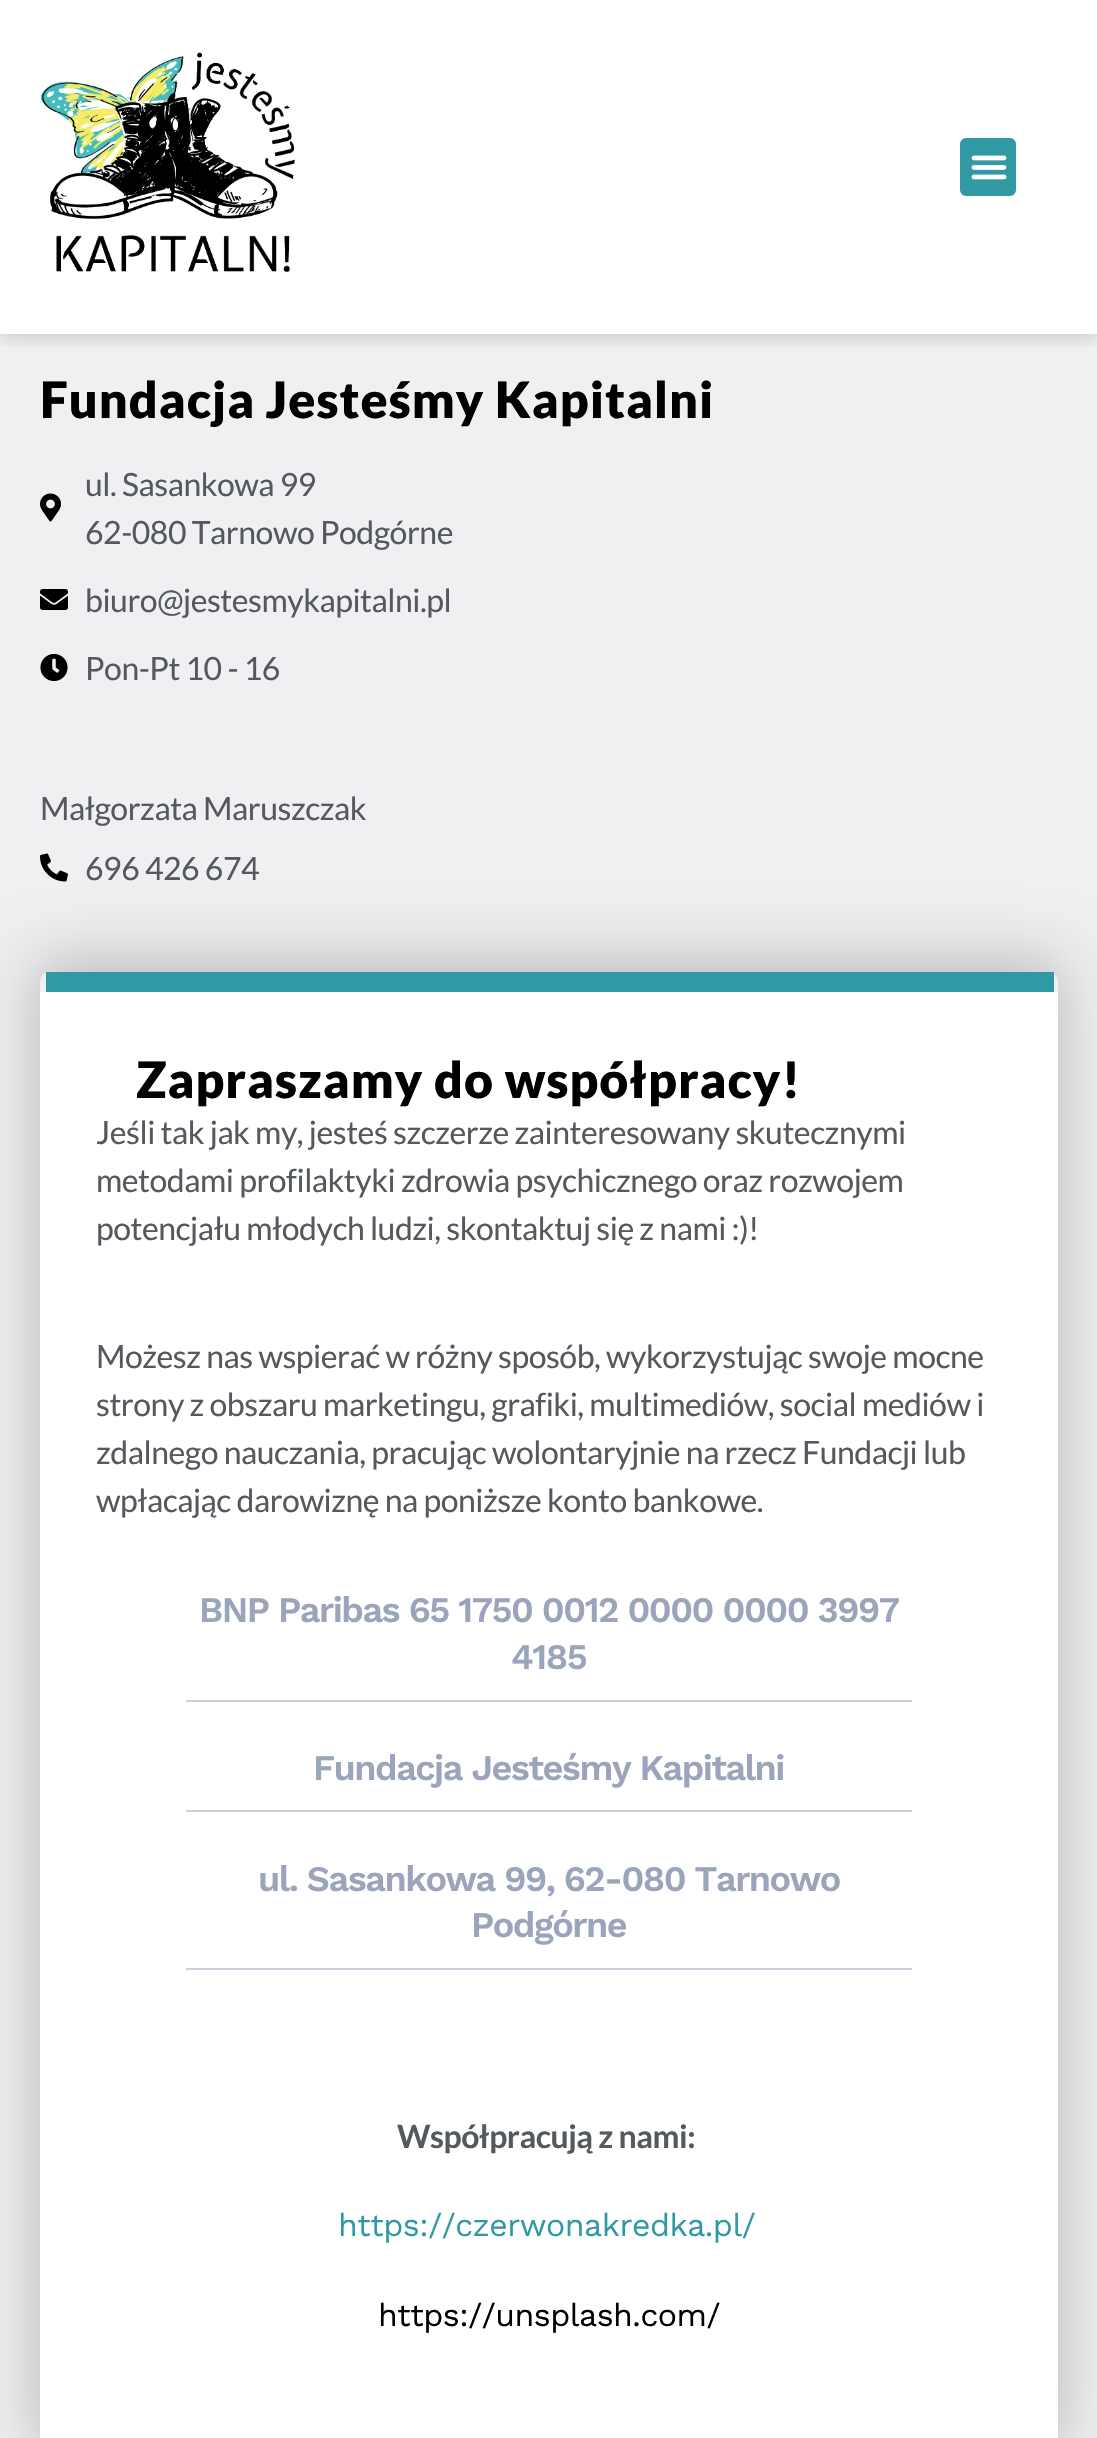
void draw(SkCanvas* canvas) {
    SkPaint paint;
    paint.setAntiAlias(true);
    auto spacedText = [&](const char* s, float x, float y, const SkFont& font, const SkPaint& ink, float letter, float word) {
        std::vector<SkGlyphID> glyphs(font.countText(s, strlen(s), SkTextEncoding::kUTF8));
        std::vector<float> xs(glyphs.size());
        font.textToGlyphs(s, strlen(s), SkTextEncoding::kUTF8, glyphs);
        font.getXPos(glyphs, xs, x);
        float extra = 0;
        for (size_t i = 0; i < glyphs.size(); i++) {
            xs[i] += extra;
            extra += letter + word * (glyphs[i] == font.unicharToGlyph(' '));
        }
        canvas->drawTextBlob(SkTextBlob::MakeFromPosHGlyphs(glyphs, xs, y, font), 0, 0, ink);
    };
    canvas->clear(0xFFFFFFFF);
    paint.setColor(0xFFF0F0F2);
    canvas->drawRect(SkRect::MakeXYWH(0, 334, 1097, 2104), paint);
    canvas->save();
    canvas->clipRect(SkRect::MakeXYWH(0, 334, 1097, 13));
    paint.setColor(0x38000000);
    paint.setMaskFilter(SkMaskFilter::MakeBlur(kNormal_SkBlurStyle, 10));
    canvas->drawRect(SkRect::MakeXYWH(0, 0, 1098, 334), paint);
    paint.setMaskFilter(nullptr);
    canvas->restore();
    canvas->drawImageRect(SkImages::DeferredFromEncodedData(SkData::MakeFromFileName("img1.png")), SkRect::MakeXYWH(40, 52, 255, 221), SkSamplingOptions());
    paint.setColor(0xFF3099A4);
    canvas->drawRoundRect(SkRect::MakeXYWH(960, 138, 56, 58), 6, 6, paint);
    canvas->drawImageRect(SkImages::DeferredFromEncodedData(SkData::MakeFromFileName("img2.png")), SkRect::MakeXYWH(971, 155, 36, 25), SkSamplingOptions());
    SkFont font1(fontMgr->matchFamilyStyle("Lato", SkFontStyle(900, SkFontStyle::kNormal_Width, SkFontStyle::kUpright_Slant)), 50);
    font1.setSubpixel(true);
    paint.setColor(0xFF000000);
    spacedText("Fundacja Jesteśmy Kapitalni", 40, 418, font1, paint, 1, 0);
    canvas->drawImageRect(SkImages::DeferredFromEncodedData(SkData::MakeFromFileName("img3.png")), SkRect::MakeXYWH(40, 493, 21, 29), SkSamplingOptions());
    SkFont font2(fontMgr->matchFamilyStyle("Lato", SkFontStyle::Normal()), 32);
    font2.setSubpixel(true);
    paint.setColor(0xFF54595F);
    spacedText("ul. Sasankowa 99", 85, 496, font2, paint, -0.48f, 0);
    spacedText("62-080 Tarnowo Podgórne", 85, 544, font2, paint, -0.48f, 0);
    canvas->drawImageRect(SkImages::DeferredFromEncodedData(SkData::MakeFromFileName("img4.png")), SkRect::MakeXYWH(40, 589, 28, 21), SkSamplingOptions());
    spacedText("biuro@jestesmykapitalni.pl", 85, 612, font2, paint, -0.48f, 0);
    canvas->drawImageRect(SkImages::DeferredFromEncodedData(SkData::MakeFromFileName("img5.png")), SkRect::MakeXYWH(40, 654, 28, 27), SkSamplingOptions());
    spacedText("Pon-Pt 10 - 16", 85, 680, font2, paint, -0.48f, 0);
    spacedText("Małgorzata Maruszczak", 40, 820, font2, paint, -0.48f, 0);
    canvas->drawImageRect(SkImages::DeferredFromEncodedData(SkData::MakeFromFileName("img6.png")), SkRect::MakeXYWH(40, 853, 28, 29), SkSamplingOptions());
    spacedText("696 426 674", 85, 880, font2, paint, -0.48f, 0);
    canvas->save();
    canvas->clipPath(SkPathBuilder(SkPathFillType::kEvenOdd).moveTo(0, 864).lineTo(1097, 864).lineTo(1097, 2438).lineTo(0, 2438).close().moveTo(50, 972).lineTo(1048, 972).cubicTo(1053.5f, 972, 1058, 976.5f, 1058, 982).lineTo(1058, 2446).cubicTo(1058, 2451.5f, 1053.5f, 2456, 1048, 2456).lineTo(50, 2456).cubicTo(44.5f, 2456, 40, 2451.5f, 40, 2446).lineTo(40, 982).cubicTo(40, 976.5f, 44.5f, 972, 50, 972).close().detach(), true);
    paint.setColor(0x36000000);
    paint.setMaskFilter(SkMaskFilter::MakeBlur(kNormal_SkBlurStyle, 31));
    canvas->drawRoundRect(SkRect::MakeXYWH(34, 958, 1030, 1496), 16, 16, paint);
    paint.setMaskFilter(nullptr);
    canvas->restore();
    paint.setColor(0xFFFFFFFF);
    canvas->drawPath(SkPathBuilder().moveTo(50, 992).lineTo(1058, 992).lineTo(1058, 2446).cubicTo(1058, 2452, 1054, 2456, 1048, 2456).lineTo(50, 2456).cubicTo(44, 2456, 40, 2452, 40, 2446).lineTo(40, 992).close().detach(), paint);
    paint.setColor(0xFF3099A4);
    canvas->drawRect(SkRect::MakeXYWH(46, 972, 1008, 20), paint);
    paint.setColor(0xFF000000);
    spacedText("Zapraszamy do współpracy!", 136, 1098, font1, paint, 1, 0);
    paint.setColor(0xFF54595F);
    spacedText("Jeśli tak jak my, jesteś szczerze zainteresowany skutecznymi", 96, 1144, font2, paint, -0.48f, 0);
    spacedText("metodami profilaktyki zdrowia psychicznego oraz rozwojem", 96, 1192, font2, paint, -0.48f, 0);
    spacedText("potencjału młodych ludzi, skontaktuj się z nami :)!", 96, 1240, font2, paint, -0.48f, 0);
    spacedText("Możesz nas wspierać w różny sposób, wykorzystując swoje mocne", 96, 1368, font2, paint, -0.48f, 0);
    spacedText("strony z obszaru marketingu, grafiki, multimediów, social mediów i", 96, 1416, font2, paint, -0.48f, 0);
    spacedText("zdalnego nauczania, pracując wolontaryjnie na rzecz Fundacji lub", 96, 1464, font2, paint, -0.48f, 0);
    spacedText("wpłacając darowiznę na poniższe konto bankowe.", 96, 1512, font2, paint, -0.48f, 0);
    paint.setColor(0xFFCBD3E0);
    canvas->drawRect(SkRect::MakeXYWH(186, 1700, 726, 2), paint);
    SkFont font3(fontMgr->matchFamilyStyle("Work Sans", SkFontStyle(600, SkFontStyle::kNormal_Width, SkFontStyle::kUpright_Slant)), 36);
    font3.setSubpixel(true);
    paint.setColor(0xFF9AA5BC);
    spacedText("BNP Paribas 65 1750 0012 0000 0000 3997", 199, 1622, font3, paint, -1.5f, 0);
    spacedText("4185", 511, 1669, font3, paint, -1.5f, 0);
    paint.setColor(0xFFCBD3E0);
    canvas->drawRect(SkRect::MakeXYWH(186, 1810, 726, 2), paint);
    paint.setColor(0xFF9AA5BC);
    spacedText("Fundacja Jesteśmy Kapitalni", 313, 1780, font3, paint, -1.5f, 0);
    paint.setColor(0xFFCBD3E0);
    canvas->drawRect(SkRect::MakeXYWH(186, 1968, 726, 2), paint);
    paint.setColor(0xFF9AA5BC);
    spacedText("ul. Sasankowa 99, 62-080 Tarnowo", 258, 1891, font3, paint, -1.5f, 0);
    spacedText("Podgórne", 471, 1937, font3, paint, -1.5f, 0);
    SkFont font4(fontMgr->matchFamilyStyle("Lato", SkFontStyle::Bold()), 32);
    font4.setSubpixel(true);
    paint.setColor(0xFF54595F);
    spacedText("Współpracują z nami:", 397, 2148, font4, paint, -0.48f, 0);
    SkFont font5(fontMgr->matchFamilyStyle("Work Sans", SkFontStyle::Normal()), 32);
    font5.setSubpixel(true);
    paint.setColor(0xFF3099A4);
    spacedText("https://czerwonakredka.pl/", 338, 2236, font5, paint, -0.48f, 0);
    paint.setColor(0xFF000000);
    spacedText("https://unsplash.com/", 378, 2326, font5, paint, -0.48f, 0);
}
